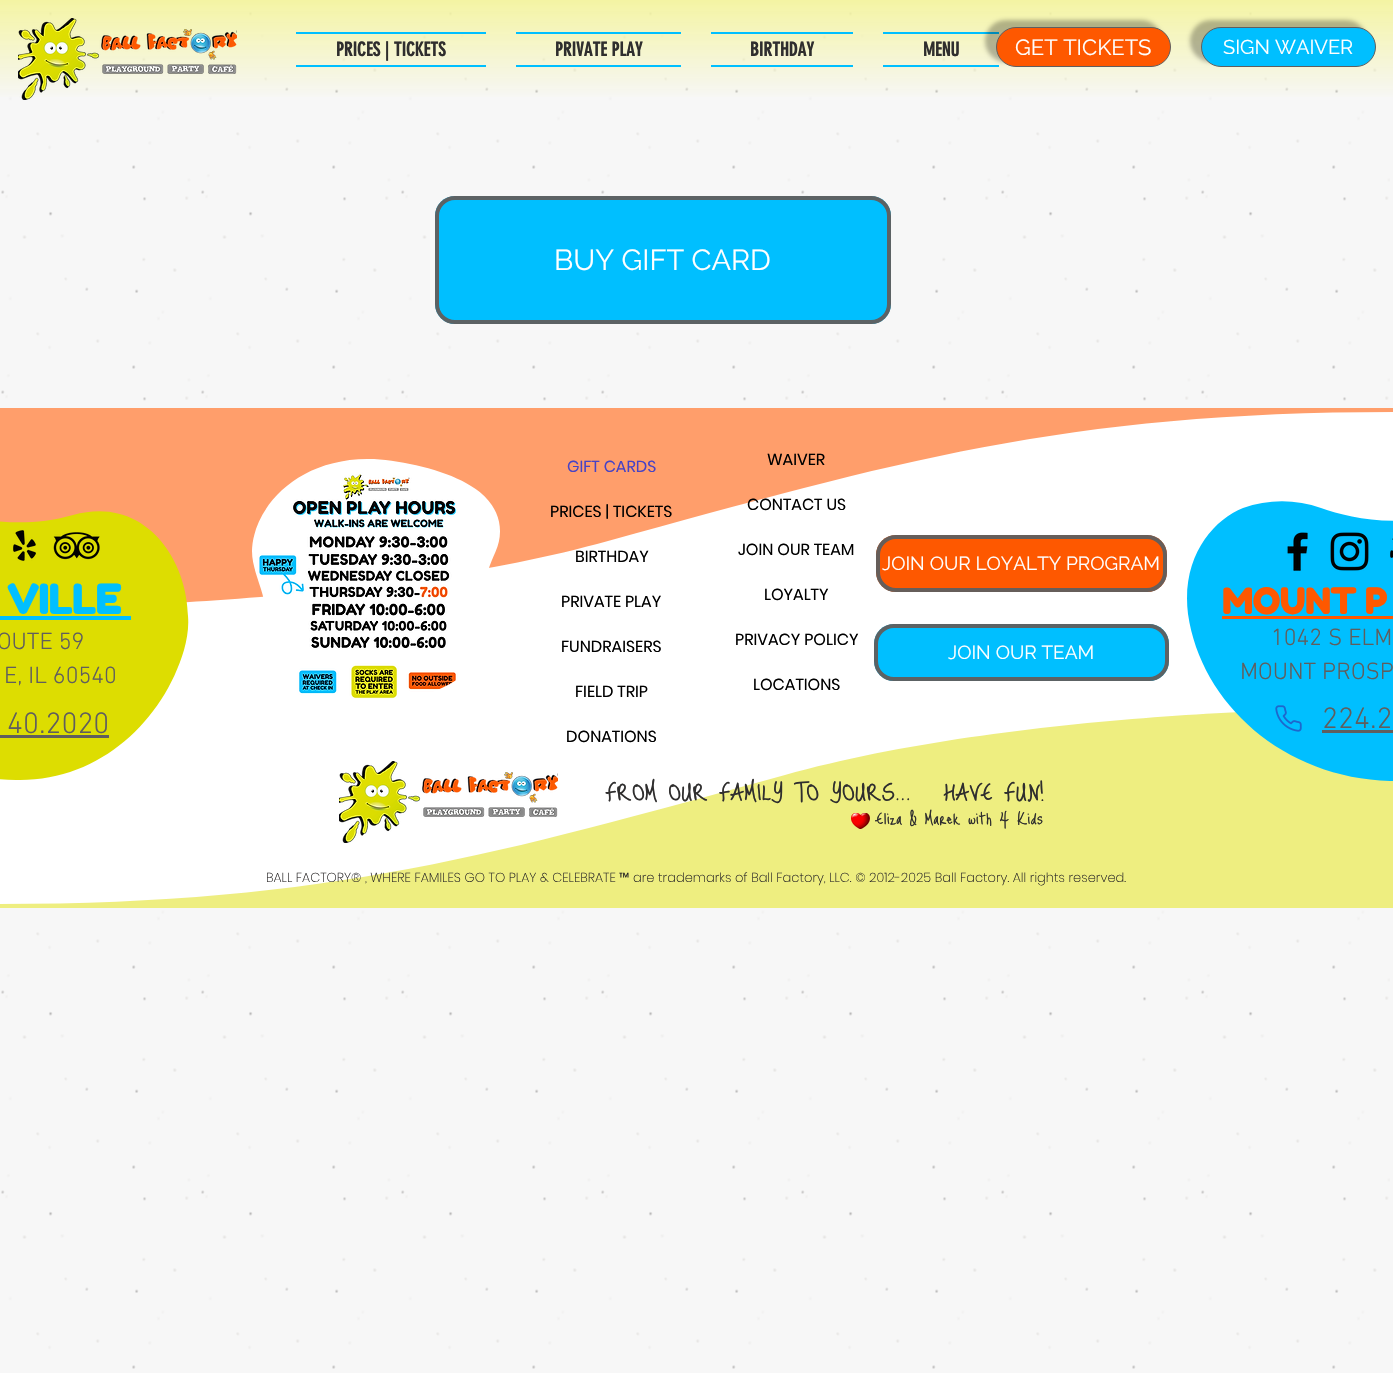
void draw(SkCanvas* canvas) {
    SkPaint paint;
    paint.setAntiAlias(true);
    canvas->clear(0xFFF7F7F7);
    canvas->drawImageRect(SkImages::DeferredFromEncodedData(SkData::MakeFromFileName("img1.png")), SkRect::MakeXYWH(1, 12, 1389, 1357), SkSamplingOptions());
    {
        const SkColor colors[] = {0x00F4F4A3, 0xFFF4F4A3};
        const float stops[] = {0, 1};
        const SkPoint ends[] = {{697, 100}, {697, 0}};
        paint.setShader(SkGradientShader::MakeLinear(ends, colors, stops, 2, SkTileMode::kClamp));
        paint.setAlpha(255);
    }
    canvas->drawRect(SkRect::MakeXYWH(0, 0, 1393, 97), paint);
    canvas->drawImageRect(SkImages::DeferredFromEncodedData(SkData::MakeFromFileName("img2.png")), SkRect::MakeXYWH(18, 18, 219, 82), SkSamplingOptions());
    paint.setShader(nullptr);
    paint.setColor(0xFF00BFFF);
    canvas->drawRect(SkRect::MakeXYWH(296, 32, 190, 2), paint);
    canvas->drawRect(SkRect::MakeXYWH(296, 65, 190, 2), paint);
    SkFont font1(fontMgr->matchFamilyStyle("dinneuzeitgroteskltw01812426", SkFontStyle::Bold()), 19);
    font1.setSubpixel(true);
    paint.setColor(0xFF2F2E2E);
    canvas->drawString("PRICES | TICKETS", 336, 56, font1, paint);
    paint.setColor(0xFF00BFFF);
    canvas->drawRect(SkRect::MakeXYWH(516, 32, 165, 2), paint);
    canvas->drawRect(SkRect::MakeXYWH(516, 65, 165, 2), paint);
    paint.setColor(0xFF2F2E2E);
    canvas->drawString("PRIVATE PLAY", 555, 56, font1, paint);
    paint.setColor(0xFF00BFFF);
    canvas->drawRect(SkRect::MakeXYWH(711, 32, 142, 2), paint);
    canvas->drawRect(SkRect::MakeXYWH(711, 65, 142, 2), paint);
    paint.setColor(0xFF2F2E2E);
    canvas->drawString("BIRTHDAY", 750, 56, font1, paint);
    paint.setColor(0xFF00BFFF);
    canvas->drawRect(SkRect::MakeXYWH(883, 32, 116, 2), paint);
    canvas->drawRect(SkRect::MakeXYWH(883, 65, 116, 2), paint);
    paint.setColor(0xFF2F2E2E);
    canvas->drawString("MENU", 923, 56, font1, paint);
    paint.setColor(0x47000000);
    paint.setMaskFilter(SkMaskFilter::MakeBlur(kNormal_SkBlurStyle, 2));
    canvas->drawRoundRect(SkRect::MakeXYWH(985, 20, 177, 42), 21, 21, paint);
    paint.setMaskFilter(nullptr);
    paint.setColor(0xFFFE5800);
    canvas->drawRoundRect(SkRect::MakeXYWH(996.5f, 27.5f, 174, 39), 19.5f, 19.5f, paint);
    paint.setStyle(SkPaint::kStroke_Style);
    paint.setStrokeWidth(1);
    paint.setColor(0xFF605E5E);
    canvas->drawRoundRect(SkRect::MakeXYWH(996.5f, 27.5f, 174, 39), 19.5f, 19.5f, paint);
    SkFont font2(fontMgr->matchFamilyStyle("Raleway", SkFontStyle::Normal()), 22);
    font2.setSubpixel(true);
    paint.setStyle(SkPaint::kFill_Style);
    paint.setColor(0xFFFFFFFF);
    canvas->drawString("GET TICKETS", 1015, 55, font2, paint);
    paint.setColor(0x47000000);
    paint.setMaskFilter(SkMaskFilter::MakeBlur(kNormal_SkBlurStyle, 2));
    canvas->drawRoundRect(SkRect::MakeXYWH(1190, 20, 177, 42), 21, 21, paint);
    paint.setMaskFilter(nullptr);
    paint.setColor(0xFF00BFFF);
    canvas->drawRoundRect(SkRect::MakeXYWH(1201.5f, 27.5f, 174, 39), 19.5f, 19.5f, paint);
    paint.setStyle(SkPaint::kStroke_Style);
    paint.setColor(0xFF605E5E);
    canvas->drawRoundRect(SkRect::MakeXYWH(1201.5f, 27.5f, 174, 39), 19.5f, 19.5f, paint);
    SkFont font3(fontMgr->matchFamilyStyle("Raleway", SkFontStyle::Normal()), 20);
    font3.setSubpixel(true);
    paint.setStyle(SkPaint::kFill_Style);
    paint.setColor(0xFFFFFFFF);
    canvas->drawString("SIGN WAIVER", 1223, 54, font3, paint);
    paint.setColor(0xFF00BFFF);
    canvas->drawRoundRect(SkRect::MakeXYWH(435, 196, 456, 128), 20, 20, paint);
    paint.setStyle(SkPaint::kStroke_Style);
    paint.setStrokeWidth(4);
    paint.setColor(0xF5605E5E);
    canvas->drawRoundRect(SkRect::MakeXYWH(437, 198, 452, 124), 18, 18, paint);
    SkFont font4(fontMgr->matchFamilyStyle("Raleway", SkFontStyle::Normal()), 29);
    font4.setSubpixel(true);
    paint.setStyle(SkPaint::kFill_Style);
    paint.setColor(0xFFFFFFFF);
    canvas->drawString("BUY GIFT CARD", 554, 270, font4, paint);
    canvas->drawRect(SkRect::MakeXYWH(0, 412, 1393, 492), paint);
    paint.setColor(0xFFFF9E6B);
    canvas->drawPath(SkPathBuilder().moveTo(1393, 408).lineTo(1393, 412).cubicTo(1063, 412, 892, 463, 608, 541).cubicTo(356, 611, 0, 608, 0, 608).lineTo(0, 408).close().detach(), paint);
    canvas->drawImageRect(SkImages::DeferredFromEncodedData(SkData::MakeFromFileName("img3.png")), SkRect::MakeXYWH(252, 459, 248, 240), SkSamplingOptions());
    SkFont font5(fontMgr->matchFamilyStyle("Poppins", SkFontStyle::Normal()), 16);
    font5.setSubpixel(true);
    paint.setColor(0xFF4743C5);
    canvas->drawString("GIFT CARDS", 567, 472, font5, paint);
    paint.setColor(0xFF000000);
    canvas->drawString("PRICES | TICKETS", 550, 517, font5, paint);
    canvas->drawString("BIRTHDAY", 575, 562, font5, paint);
    canvas->drawString("PRIVATE PLAY", 561, 607, font5, paint);
    canvas->drawString("FUNDRAISERS", 561, 652, font5, paint);
    canvas->drawString("FIELD TRIP", 575, 697, font5, paint);
    paint.setColor(0xFFEEEE80);
    canvas->drawPath(SkPathBuilder().moveTo(0, 908).lineTo(0, 904).cubicTo(330, 904, 501, 853, 785, 775).cubicTo(1037, 705, 1393, 708, 1393, 708).lineTo(1393, 908).close().detach(), paint);
    paint.setColor(0xFF000000);
    canvas->drawString("DONATIONS", 566, 742, font5, paint);
    canvas->drawString("WAIVER", 767, 465, font5, paint);
    canvas->drawString("CONTACT US", 747, 510, font5, paint);
    canvas->drawString("JOIN OUR TEAM", 738, 555, font5, paint);
    canvas->drawString("LOYALTY", 764, 600, font5, paint);
    canvas->drawString("PRIVACY POLICY", 735, 645, font5, paint);
    canvas->drawString("LOCATIONS", 753, 690, font5, paint);
    paint.setColor(0xFFFE5800);
    canvas->drawRoundRect(SkRect::MakeXYWH(876, 535, 291, 57), 20, 20, paint);
    paint.setStyle(SkPaint::kStroke_Style);
    paint.setColor(0xF5605E5E);
    canvas->drawRoundRect(SkRect::MakeXYWH(878, 537, 287, 53), 18, 18, paint);
    SkFont font6(fontMgr->matchFamilyStyle("Raleway", SkFontStyle::Normal()), 19);
    font6.setSubpixel(true);
    paint.setStyle(SkPaint::kFill_Style);
    paint.setColor(0xFFFFFFFF);
    canvas->drawString("JOIN OUR LOYALTY PROGRAM", 882, 570, font6, paint);
    paint.setColor(0xFF00BFFF);
    canvas->drawPath(SkPathBuilder(SkPathFillType::kEvenOdd).moveTo(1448, 513).cubicTo(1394, 529, 1347, 517, 1321, 508).cubicTo(1296, 499, 1268, 499, 1243, 508).cubicTo(1213, 520, 1181, 557, 1188, 614).cubicTo(1201, 704, 1284, 778, 1390, 781).cubicTo(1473, 783, 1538, 721, 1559, 650).cubicTo(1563, 639, 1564, 627, 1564, 616).cubicTo(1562, 557, 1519, 493, 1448, 513).close().detach(), paint);
    paint.setColor(0xFFDDDD01);
    canvas->drawPath(SkPathBuilder(SkPathFillType::kEvenOdd).moveTo(73, 515).cubicTo(20, 530, -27, 519, -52, 509).cubicTo(-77, 500, -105, 500, -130, 510).cubicTo(-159, 521, -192, 558, -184, 614).cubicTo(-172, 704, -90, 778, 16, 780).cubicTo(99, 782, 163, 721, 184, 650).cubicTo(187, 639, 189, 628, 188, 616).cubicTo(187, 558, 144, 495, 73, 515).close().detach(), paint);
    canvas->drawImageRect(SkImages::DeferredFromEncodedData(SkData::MakeFromFileName("img4.png")), SkRect::MakeXYWH(13, 530, 23, 31), SkSamplingOptions());
    canvas->drawImageRect(SkImages::DeferredFromEncodedData(SkData::MakeFromFileName("img5.png")), SkRect::MakeXYWH(53, 532, 47, 28), SkSamplingOptions());
    SkFont font7(fontMgr->matchFamilyStyle("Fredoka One", SkFontStyle::Bold()), 40);
    font7.setSubpixel(true);
    paint.setColor(0xFF00BFFF);
    canvas->drawString("VILLE", 7, 614, font7, paint);
    canvas->drawRect(SkRect::MakeXYWH(0, 616, 131, 4), paint);
    SkFont font8(fontMgr->matchFamilyStyle("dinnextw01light", SkFontStyle(300, SkFontStyle::kNormal_Width, SkFontStyle::kUpright_Slant)), 24);
    font8.setSubpixel(true);
    paint.setColor(0xFF605E5E);
    canvas->drawString("OUTE 59", -3, 649, font8, paint);
    canvas->drawString("E, IL 60540", 4, 683, font8, paint);
    SkFont font9(fontMgr->matchFamilyStyle("dinnextw01light", SkFontStyle(300, SkFontStyle::kNormal_Width, SkFontStyle::kUpright_Slant)), 30);
    font9.setSubpixel(true);
    canvas->drawString("40.2020", 7, 733, font9, paint);
    canvas->drawRect(SkRect::MakeXYWH(0, 735, 109, 3), paint);
    paint.setColor(0xFF00BFFF);
    canvas->drawRoundRect(SkRect::MakeXYWH(874, 624, 295, 57), 20, 20, paint);
    paint.setStyle(SkPaint::kStroke_Style);
    paint.setColor(0xF5605E5E);
    canvas->drawRoundRect(SkRect::MakeXYWH(876, 626, 291, 53), 18, 18, paint);
    paint.setStyle(SkPaint::kFill_Style);
    paint.setColor(0xFFFFFFFF);
    canvas->drawString("JOIN OUR TEAM", 948, 659, font6, paint);
    canvas->drawImageRect(SkImages::DeferredFromEncodedData(SkData::MakeFromFileName("img6.png")), SkRect::MakeXYWH(1287, 532, 21, 39), SkSamplingOptions());
    canvas->drawImageRect(SkImages::DeferredFromEncodedData(SkData::MakeFromFileName("img7.png")), SkRect::MakeXYWH(1330, 532, 39, 39), SkSamplingOptions());
    canvas->drawImageRect(SkImages::DeferredFromEncodedData(SkData::MakeFromFileName("img8.png")), SkRect::MakeXYWH(1390, 538, 3, 20), SkSamplingOptions());
    SkFont font10(fontMgr->matchFamilyStyle("Fredoka One", SkFontStyle::Bold()), 35);
    font10.setSubpixel(true);
    paint.setColor(0xFFFE5800);
    canvas->drawString("MOUNT P", 1222, 614, font10, paint);
    canvas->drawRect(SkRect::MakeXYWH(1222, 616, 171, 3), paint);
    paint.setColor(0xFF605E5E);
    canvas->drawString("1042 S ELM", 1271, 645, font8, paint);
    canvas->drawString("MOUNT PROSP", 1240, 679, font8, paint);
    canvas->drawImageRect(SkImages::DeferredFromEncodedData(SkData::MakeFromFileName("img9.png")), SkRect::MakeXYWH(1275, 705, 27, 27), SkSamplingOptions());
    canvas->drawString("224.2", 1322, 728, font9, paint);
    canvas->drawRect(SkRect::MakeXYWH(1322, 730, 71, 3), paint);
    canvas->drawImageRect(SkImages::DeferredFromEncodedData(SkData::MakeFromFileName("img10.png")), SkRect::MakeXYWH(339, 761, 219, 82), SkSamplingOptions());
    SkFont font11(fontMgr->matchFamilyStyle("Just Me Again Down Here", SkFontStyle::Normal()), 29);
    font11.setSubpixel(true);
    paint.setColor(0xFF2F2E2E);
    canvas->drawString("FROM OUR FAMILY TO YOURS...   HAVE FUN!", 605, 800, font11, paint);
    canvas->drawImageRect(SkImages::DeferredFromEncodedData(SkData::MakeFromFileName("img11.png")), SkRect::MakeXYWH(851, 813, 19, 16), SkSamplingOptions());
    SkFont font12(fontMgr->matchFamilyStyle("Just Me Again Down Here", SkFontStyle::Normal()), 20);
    font12.setSubpixel(true);
    canvas->drawString("Eliza & Marek with 4 Kids", 875, 824, font12, paint);
    SkFont font13(fontMgr->matchFamilyStyle("Poppins", SkFontStyle(200, SkFontStyle::kNormal_Width, SkFontStyle::kUpright_Slant)), 13);
    font13.setSubpixel(true);
    paint.setColor(0xFF282626);
    canvas->drawString("BALL FACTORY® , WHERE FAMILES GO TO PLAY & CELEBRATE", 266, 882, font13, paint);
    SkFont font14(fontMgr->matchFamilyStyle("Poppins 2", SkFontStyle::Normal()), 13);
    font14.setSubpixel(true);
    canvas->drawString("™", 619, 882, font14, paint);
    canvas->drawString("are trademarks of Ball Factory, LLC. © 2012-2025 Ball Factory. All rights reserved.", 633, 882, font13, paint);
}
